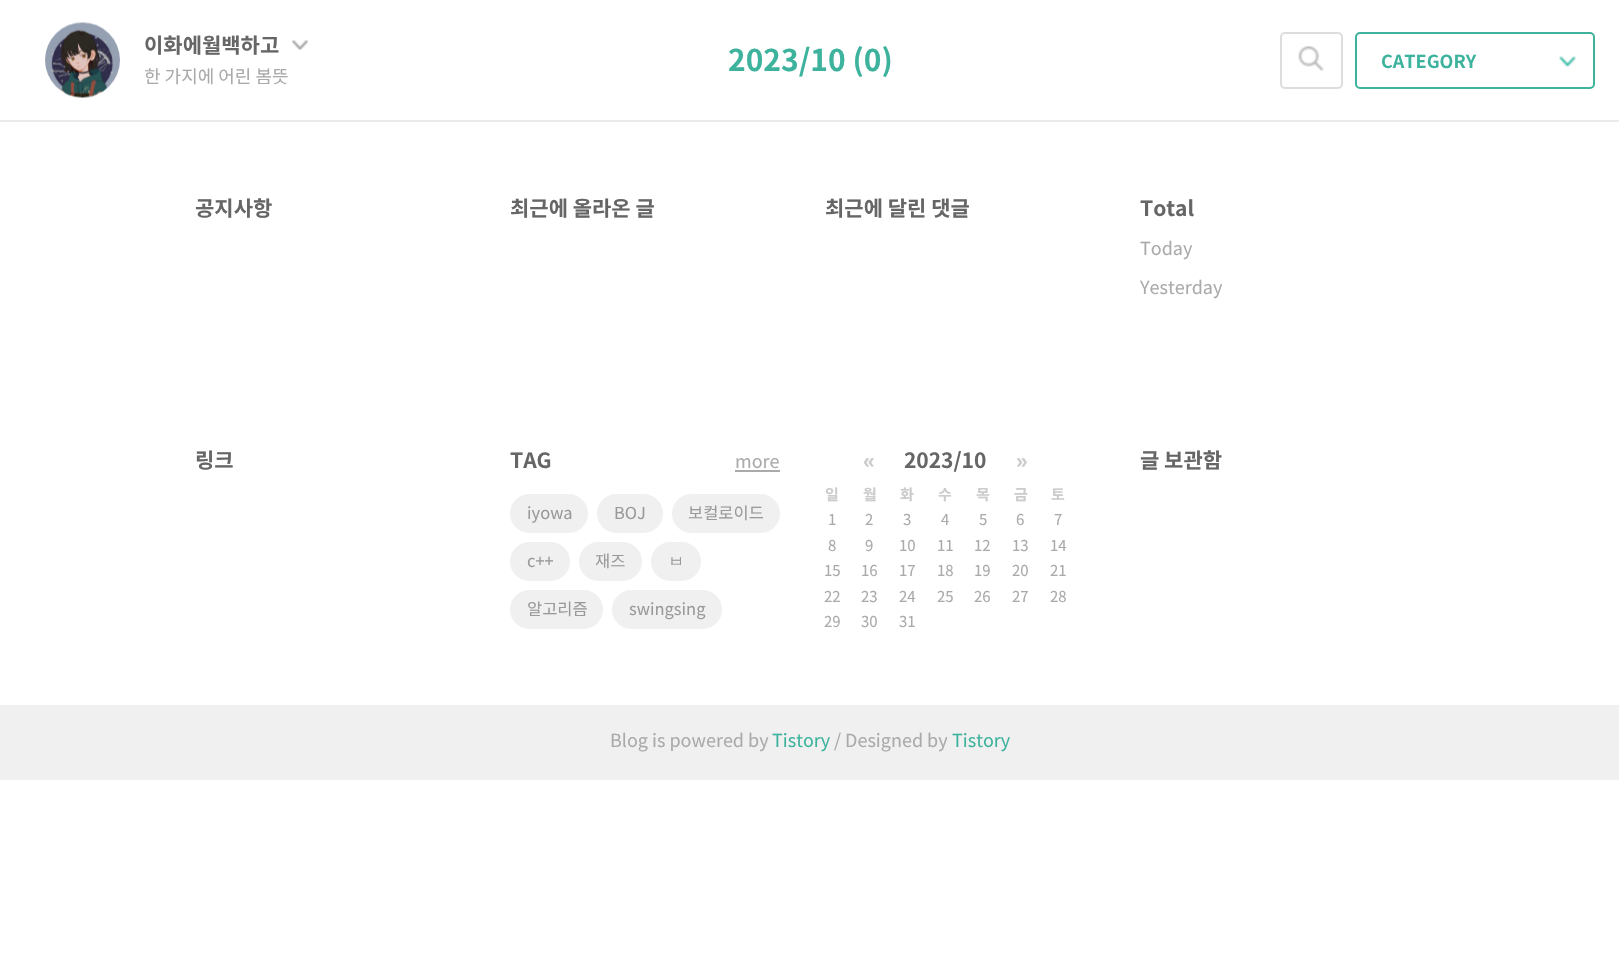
void draw(SkCanvas* canvas) {
    SkPaint paint;
    paint.setAntiAlias(true);
    canvas->clear(0xFFFFFFFF);
    paint.setColor(0xFFEBEBEB);
    canvas->drawRect(SkRect::MakeXYWH(0, 120, 1619, 2), paint);
    canvas->drawImageRect(SkImages::DeferredFromEncodedData(SkData::MakeFromFileName("img1.png")), SkRect::MakeXYWH(45, 22, 75, 76), SkSamplingOptions());
    SkFont font1(fontMgr->matchFamilyStyle("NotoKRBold", SkFontStyle::Bold()), 21);
    font1.setSubpixel(true);
    paint.setColor(0xFF666666);
    canvas->drawString("이화에월백하고", 144, 53, font1, paint);
    canvas->drawImageRect(SkImages::DeferredFromEncodedData(SkData::MakeFromFileName("img2.png")), SkRect::MakeXYWH(292, 40, 16, 10), SkSamplingOptions());
    SkFont font2(fontMgr->matchFamilyStyle("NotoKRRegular", SkFontStyle::Normal()), 18);
    font2.setSubpixel(true);
    paint.setColor(0xFFAAAAAA);
    canvas->drawString("한 가지에 어린 봄뜻", 144, 83, font2, paint);
    SkFont font3(fontMgr->matchFamilyStyle("NotoKRBold", SkFontStyle::Bold()), 30);
    font3.setSubpixel(true);
    paint.setColor(0xFF3DB39E);
    canvas->drawString("2023/10 (0)", 728, 71, font3, paint);
    paint.setStyle(SkPaint::kStroke_Style);
    paint.setStrokeWidth(2);
    paint.setColor(0xFFDDDDDD);
    canvas->drawRoundRect(SkRect::MakeXYWH(1281, 33, 61, 55), 4, 4, paint);
    canvas->drawImageRect(SkImages::DeferredFromEncodedData(SkData::MakeFromFileName("img3.png")), SkRect::MakeXYWH(1298, 46, 26, 25), SkSamplingOptions());
    paint.setColor(0xFF3DB39E);
    canvas->drawRoundRect(SkRect::MakeXYWH(1356, 33, 238, 55), 4, 4, paint);
    SkFont font4(fontMgr->matchFamilyStyle("NotoKRBold", SkFontStyle::Bold()), 18);
    font4.setSubpixel(true);
    paint.setStyle(SkPaint::kFill_Style);
    canvas->drawString("CATEGORY", 1381, 68, font4, paint);
    canvas->drawImageRect(SkImages::DeferredFromEncodedData(SkData::MakeFromFileName("img4.png")), SkRect::MakeXYWH(1559, 56, 17, 11), SkSamplingOptions());
    paint.setColor(0xFF666666);
    canvas->drawString("공지사항", 195, 216, font1, paint);
    canvas->drawString("최근에 올라온 글", 510, 216, font1, paint);
    canvas->drawString("최근에 달린 댓글", 825, 216, font1, paint);
    canvas->drawString("Total", 1140, 216, font1, paint);
    paint.setColor(0xFFAAAAAA);
    canvas->drawString("Today", 1140, 255, font2, paint);
    canvas->drawString("Yesterday", 1140, 294, font2, paint);
    paint.setColor(0xFF666666);
    canvas->drawString("링크", 195, 468, font1, paint);
    canvas->drawString("TAG", 510, 468, font1, paint);
    paint.setColor(0xFFAAAAAA);
    canvas->drawString("more", 735, 468, font2, paint);
    canvas->drawRect(SkRect::MakeXYWH(735, 470, 45, 2), paint);
    paint.setColor(0xFFF0F0F0);
    canvas->drawRoundRect(SkRect::MakeXYWH(511, 495, 76, 37), 18.5f, 18.5f, paint);
    paint.setStyle(SkPaint::kStroke_Style);
    canvas->drawRoundRect(SkRect::MakeXYWH(511, 495, 76, 37), 18.5f, 18.5f, paint);
    SkFont font5(fontMgr->matchFamilyStyle("NotoKRRegular", SkFontStyle::Normal()), 16.5f);
    font5.setSubpixel(true);
    paint.setStyle(SkPaint::kFill_Style);
    paint.setColor(0xFF999999);
    canvas->drawString("iyowa", 527, 519, font5, paint);
    paint.setColor(0xFFF0F0F0);
    canvas->drawRoundRect(SkRect::MakeXYWH(598, 495, 64, 37), 18.5f, 18.5f, paint);
    paint.setStyle(SkPaint::kStroke_Style);
    canvas->drawRoundRect(SkRect::MakeXYWH(598, 495, 64, 37), 18.5f, 18.5f, paint);
    paint.setStyle(SkPaint::kFill_Style);
    paint.setColor(0xFF999999);
    canvas->drawString("BOJ", 614, 519, font5, paint);
    paint.setColor(0xFFF0F0F0);
    canvas->drawRoundRect(SkRect::MakeXYWH(673, 495, 106, 37), 18.5f, 18.5f, paint);
    paint.setStyle(SkPaint::kStroke_Style);
    canvas->drawRoundRect(SkRect::MakeXYWH(673, 495, 106, 37), 18.5f, 18.5f, paint);
    paint.setStyle(SkPaint::kFill_Style);
    paint.setColor(0xFF999999);
    canvas->drawString("보컬로이드", 688, 519, font5, paint);
    paint.setColor(0xFFF0F0F0);
    canvas->drawRoundRect(SkRect::MakeXYWH(511, 543, 58, 37), 18.5f, 18.5f, paint);
    paint.setStyle(SkPaint::kStroke_Style);
    canvas->drawRoundRect(SkRect::MakeXYWH(511, 543, 58, 37), 18.5f, 18.5f, paint);
    paint.setStyle(SkPaint::kFill_Style);
    paint.setColor(0xFF999999);
    canvas->drawString("c++", 527, 567, font5, paint);
    paint.setColor(0xFFF0F0F0);
    canvas->drawRoundRect(SkRect::MakeXYWH(580, 543, 61, 37), 18.5f, 18.5f, paint);
    paint.setStyle(SkPaint::kStroke_Style);
    canvas->drawRoundRect(SkRect::MakeXYWH(580, 543, 61, 37), 18.5f, 18.5f, paint);
    paint.setStyle(SkPaint::kFill_Style);
    paint.setColor(0xFF999999);
    canvas->drawString("재즈", 595, 567, font5, paint);
    paint.setColor(0xFFF0F0F0);
    canvas->drawRoundRect(SkRect::MakeXYWH(652, 543, 48, 37), 18.5f, 18.5f, paint);
    paint.setStyle(SkPaint::kStroke_Style);
    canvas->drawRoundRect(SkRect::MakeXYWH(652, 543, 48, 37), 18.5f, 18.5f, paint);
    SkFont font6(fontMgr->matchFamilyStyle("WenQuanYi Zen Hei", SkFontStyle(500, SkFontStyle::kNormal_Width, SkFontStyle::kUpright_Slant)), 16.5f);
    font6.setSubpixel(true);
    paint.setStyle(SkPaint::kFill_Style);
    paint.setColor(0xFF999999);
    canvas->drawString("ㅂ", 668, 567, font6, paint);
    paint.setColor(0xFFF0F0F0);
    canvas->drawRoundRect(SkRect::MakeXYWH(511, 591, 91, 37), 18.5f, 18.5f, paint);
    paint.setStyle(SkPaint::kStroke_Style);
    canvas->drawRoundRect(SkRect::MakeXYWH(511, 591, 91, 37), 18.5f, 18.5f, paint);
    paint.setStyle(SkPaint::kFill_Style);
    paint.setColor(0xFF999999);
    canvas->drawString("알고리즘", 527, 615, font5, paint);
    paint.setColor(0xFFF0F0F0);
    canvas->drawRoundRect(SkRect::MakeXYWH(613, 591, 108, 37), 18.5f, 18.5f, paint);
    paint.setStyle(SkPaint::kStroke_Style);
    canvas->drawRoundRect(SkRect::MakeXYWH(613, 591, 108, 37), 18.5f, 18.5f, paint);
    paint.setStyle(SkPaint::kFill_Style);
    paint.setColor(0xFF999999);
    canvas->drawString("swingsing", 629, 615, font5, paint);
    SkFont font7(fontMgr->matchFamilyStyle("Liberation Sans", SkFontStyle::Bold()), 21);
    font7.setSubpixel(true);
    paint.setColor(0xFFCCCCCC);
    canvas->drawString("«", 863, 468, font7, paint);
    paint.setColor(0xFF666666);
    canvas->drawString("2023/10", 904, 468, font1, paint);
    paint.setColor(0xFFCCCCCC);
    canvas->drawString("»", 1016, 468, font7, paint);
    SkFont font8(fontMgr->matchFamilyStyle("NotoKRBold", SkFontStyle::Bold()), 15);
    font8.setSubpixel(true);
    canvas->drawString("일", 825, 500, font8, paint);
    canvas->drawString("월", 863, 500, font8, paint);
    canvas->drawString("화", 900, 500, font8, paint);
    canvas->drawString("수", 938, 500, font8, paint);
    canvas->drawString("목", 976, 500, font8, paint);
    canvas->drawString("금", 1014, 500, font8, paint);
    canvas->drawString("토", 1051, 500, font8, paint);
    SkFont font9(fontMgr->matchFamilyStyle("NotoKRRegular", SkFontStyle::Normal()), 15);
    font9.setSubpixel(true);
    paint.setColor(0xFFAAAAAA);
    canvas->drawString("1", 828, 525, font9, paint);
    canvas->drawString("2", 865, 525, font9, paint);
    canvas->drawString("3", 903, 525, font9, paint);
    canvas->drawString("4", 941, 525, font9, paint);
    canvas->drawString("5", 979, 525, font9, paint);
    canvas->drawString("6", 1016, 525, font9, paint);
    canvas->drawString("7", 1054, 525, font9, paint);
    canvas->drawString("8", 828, 551, font9, paint);
    canvas->drawString("9", 865, 551, font9, paint);
    canvas->drawString("10", 899, 551, font9, paint);
    canvas->drawString("11", 937, 551, font9, paint);
    canvas->drawString("12", 974, 551, font9, paint);
    canvas->drawString("13", 1012, 551, font9, paint);
    canvas->drawString("14", 1050, 551, font9, paint);
    canvas->drawString("15", 824, 576, font9, paint);
    canvas->drawString("16", 861, 576, font9, paint);
    canvas->drawString("17", 899, 576, font9, paint);
    canvas->drawString("18", 937, 576, font9, paint);
    canvas->drawString("19", 974, 576, font9, paint);
    canvas->drawString("20", 1012, 576, font9, paint);
    canvas->drawString("21", 1050, 576, font9, paint);
    canvas->drawString("22", 824, 602, font9, paint);
    canvas->drawString("23", 861, 602, font9, paint);
    canvas->drawString("24", 899, 602, font9, paint);
    canvas->drawString("25", 937, 602, font9, paint);
    canvas->drawString("26", 974, 602, font9, paint);
    canvas->drawString("27", 1012, 602, font9, paint);
    canvas->drawString("28", 1050, 602, font9, paint);
    canvas->drawString("29", 824, 627, font9, paint);
    canvas->drawString("30", 861, 627, font9, paint);
    canvas->drawString("31", 899, 627, font9, paint);
    paint.setColor(0xFF666666);
    canvas->drawString("글 보관함", 1140, 468, font1, paint);
    paint.setColor(0xFFF0F0F0);
    canvas->drawRect(SkRect::MakeXYWH(0, 705, 1619, 75), paint);
    paint.setColor(0xFFAAAAAA);
    canvas->drawString("Blog is powered by", 610, 747, font2, paint);
    paint.setColor(0xFF3DB39E);
    canvas->drawString("Tistory", 772, 747, font2, paint);
    paint.setColor(0xFFAAAAAA);
    canvas->drawString("/ Designed by", 834, 747, font2, paint);
    paint.setColor(0xFF3DB39E);
    canvas->drawString("Tistory", 952, 747, font2, paint);
}
